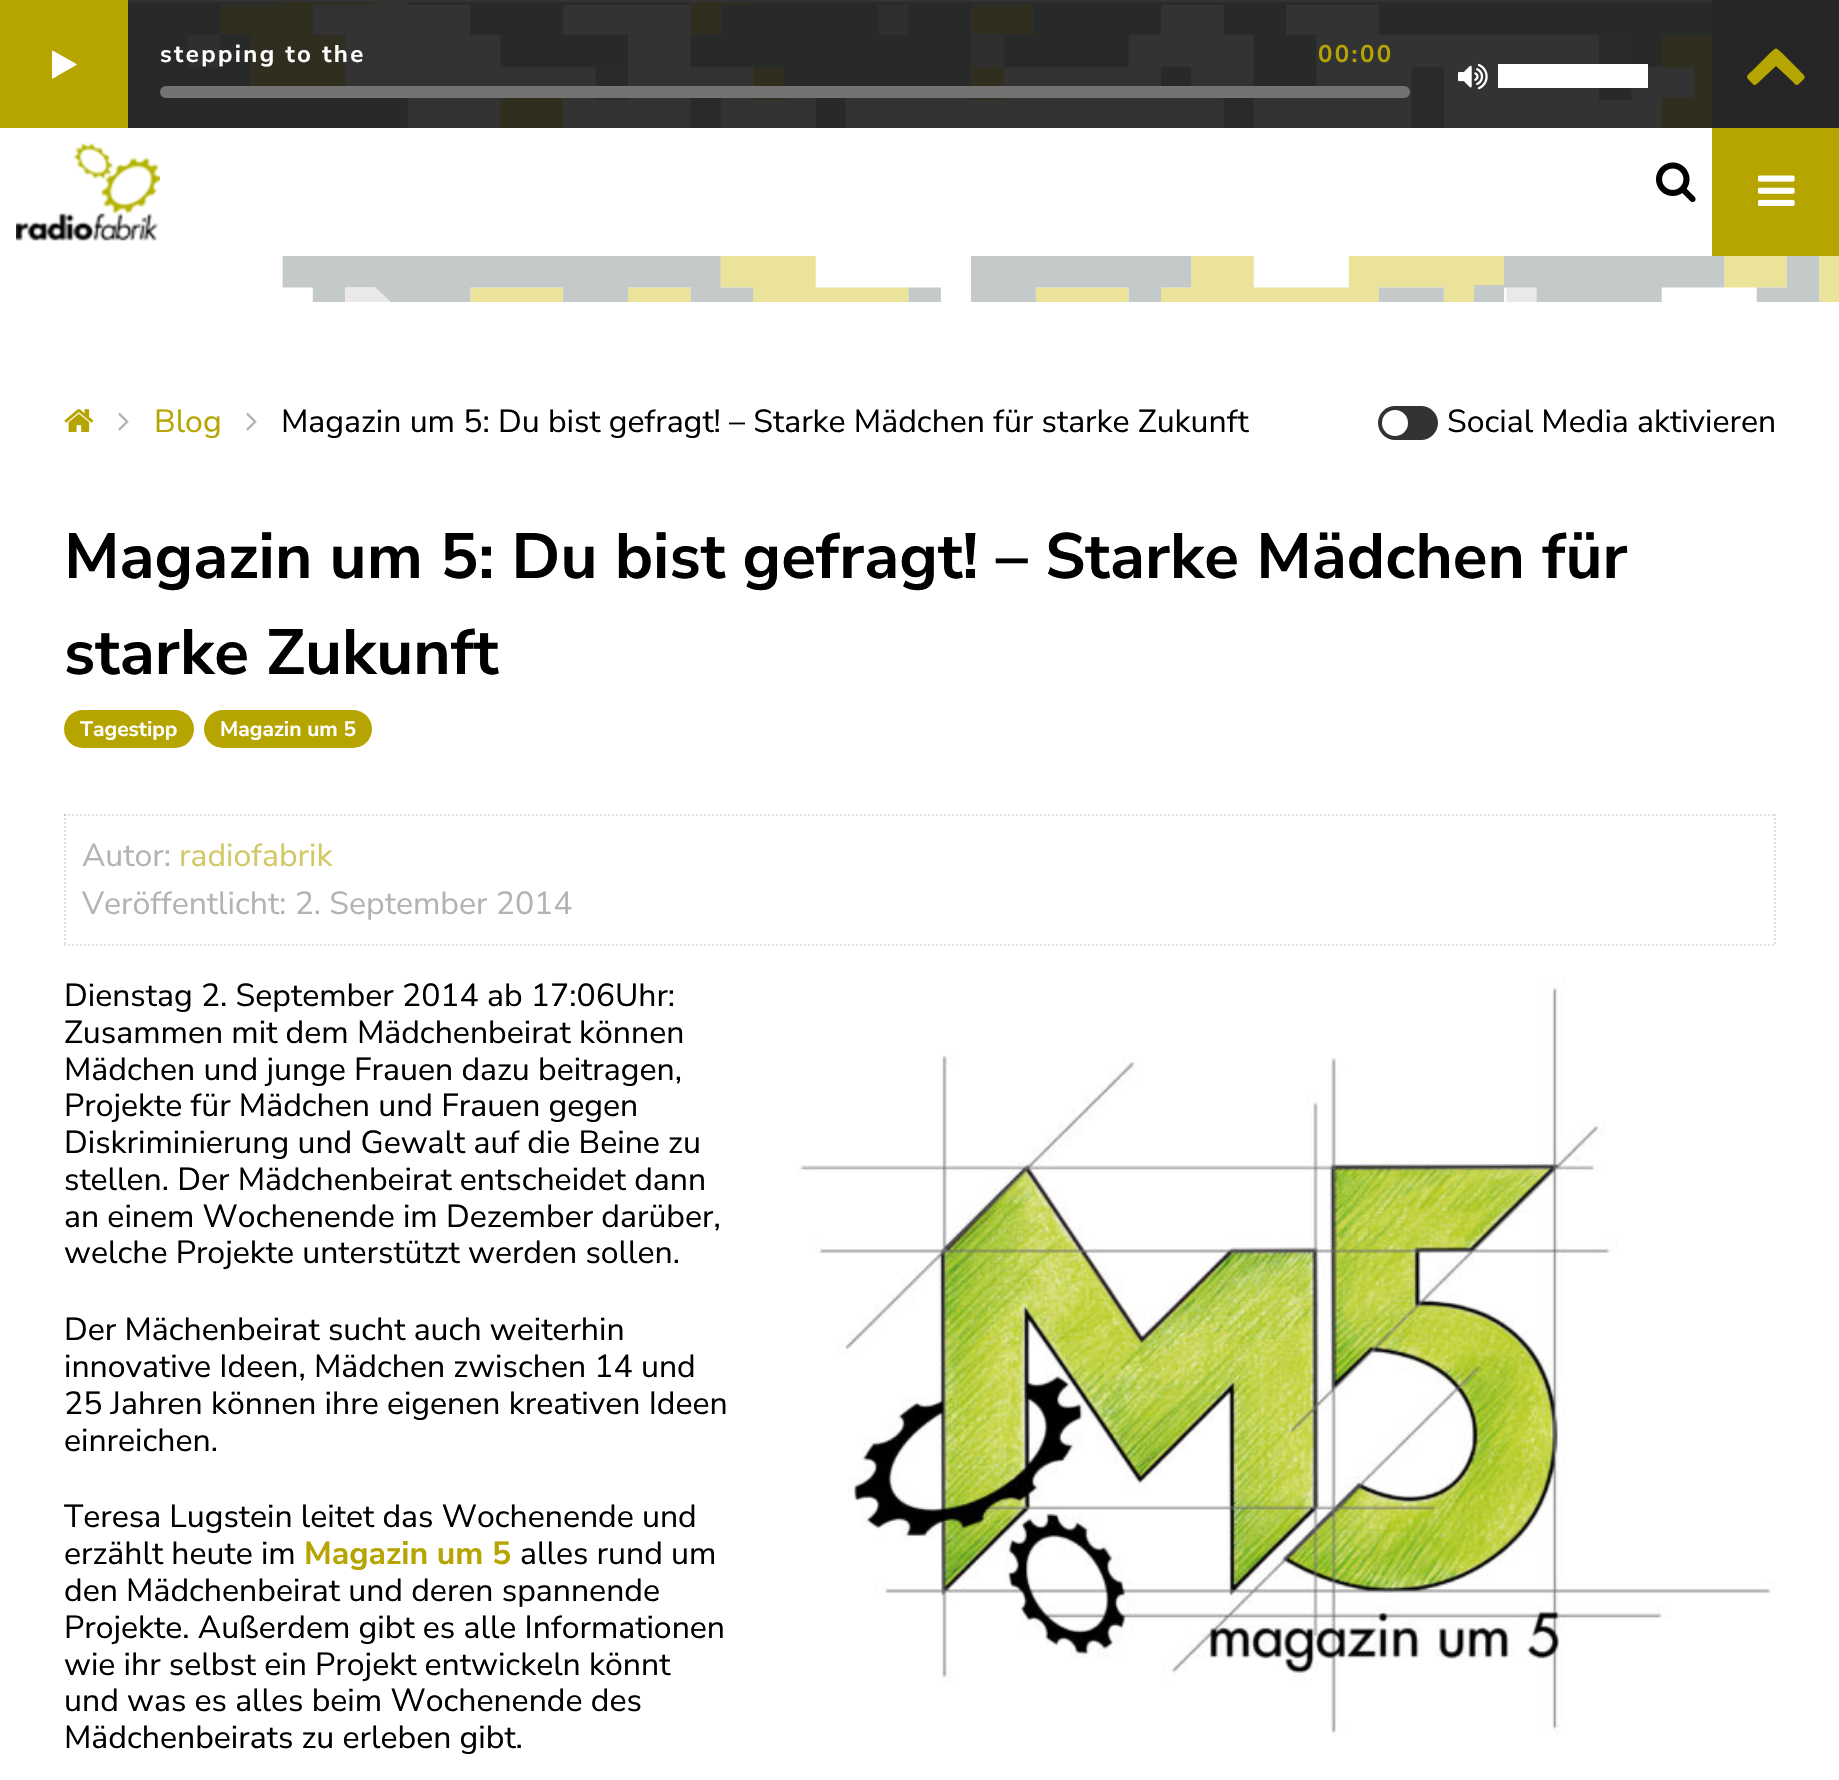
void draw(SkCanvas* canvas) {
    SkPaint paint;
    paint.setAntiAlias(true);
    auto spacedText = [&](const char* s, float x, float y, const SkFont& font, const SkPaint& ink, float letter, float word) {
        std::vector<SkGlyphID> glyphs(font.countText(s, strlen(s), SkTextEncoding::kUTF8));
        std::vector<float> xs(glyphs.size());
        font.textToGlyphs(s, strlen(s), SkTextEncoding::kUTF8, glyphs);
        font.getXPos(glyphs, xs, x);
        float extra = 0;
        for (size_t i = 0; i < glyphs.size(); i++) {
            xs[i] += extra;
            extra += letter + word * (glyphs[i] == font.unicharToGlyph(' '));
        }
        canvas->drawTextBlob(SkTextBlob::MakeFromPosHGlyphs(glyphs, xs, y, font), 0, 0, ink);
    };
    canvas->clear(0xFFFFFFFF);
    canvas->drawImageRect(SkImages::DeferredFromEncodedData(SkData::MakeFromFileName("img1.png")), SkRect::MakeXYWH(0, 2, 1839, 300), SkSamplingOptions());
    paint.setColor(0xCC000000);
    canvas->drawRect(SkRect::MakeXYWH(128, 0, 1584, 128), paint);
    paint.setColor(0xFFB6A401);
    canvas->drawRect(SkRect::MakeXYWH(0, 0, 128, 128), paint);
    paint.setColor(0xFFFFFFFF);
    canvas->drawPath(SkPathBuilder().moveTo(76.5f, 65).lineTo(57, 76).cubicTo(56.5f, 76.5f, 53, 79.5f, 52, 78).lineTo(52, 51).lineTo(52.5f, 50.5f).lineTo(73, 62).lineTo(77, 64.5f).close().detach(), paint);
    SkFont font1(fontMgr->matchFamilyStyle("Nunito Sans", SkFontStyle::Bold()), 24);
    font1.setSubpixel(true);
    spacedText("stepping to the", 160, 62, font1, paint, 2.4f, 0);
    paint.setColor(0xFFB6A401);
    spacedText("00:00", 1318, 62, font1, paint, 2.4f, 0);
    paint.setColor(0xFF737373);
    canvas->drawRoundRect(SkRect::MakeXYWH(160, 86, 1250, 12), 6, 6, paint);
    paint.setColor(0xFF262626);
    canvas->drawRect(SkRect::MakeXYWH(1712, 0, 127, 128), paint);
    paint.setColor(0xFFB6A401);
    canvas->drawPath(SkPathBuilder().moveTo(1804, 79).cubicTo(1797, 85, 1798, 88, 1792, 81).lineTo(1776, 66).lineTo(1760, 81).cubicTo(1754, 87, 1755, 86, 1749, 80).cubicTo(1745, 76, 1748, 75, 1752, 71).lineTo(1770, 53).cubicTo(1777, 47, 1775, 47, 1782, 53).lineTo(1800, 71).cubicTo(1800, 72, 1807, 76, 1804, 79).close().detach(), paint);
    canvas->drawImageRect(SkImages::DeferredFromEncodedData(SkData::MakeFromFileName("img2.png")), SkRect::MakeXYWH(1458, 63, 30, 27), SkSamplingOptions());
    paint.setColor(0xFFFFFFFF);
    canvas->drawRect(SkRect::MakeXYWH(1498, 64, 150, 24), paint);
    canvas->drawRect(SkRect::MakeXYWH(0, 128, 1712, 128), paint);
    canvas->drawImageRect(SkImages::DeferredFromEncodedData(SkData::MakeFromFileName("img3.png")), SkRect::MakeXYWH(16, 143, 144, 98), SkSamplingOptions());
    canvas->drawImageRect(SkImages::DeferredFromEncodedData(SkData::MakeFromFileName("img4.png")), SkRect::MakeXYWH(1656, 162, 40, 41), SkSamplingOptions());
    paint.setColor(0xFFB6A401);
    canvas->drawRect(SkRect::MakeXYWH(1712, 128, 127, 128), paint);
    canvas->drawImageRect(SkImages::DeferredFromEncodedData(SkData::MakeFromFileName("img5.png")), SkRect::MakeXYWH(1758, 175, 37, 31), SkSamplingOptions());
    canvas->drawImageRect(SkImages::DeferredFromEncodedData(SkData::MakeFromFileName("img6.png")), SkRect::MakeXYWH(64, 409, 30, 23), SkSamplingOptions());
    canvas->drawImageRect(SkImages::DeferredFromEncodedData(SkData::MakeFromFileName("img7.png")), SkRect::MakeXYWH(118, 412, 11, 19), SkSamplingOptions());
    SkFont font2(fontMgr->matchFamilyStyle("Nunito Sans", SkFontStyle::Normal()), 32);
    font2.setSubpixel(true);
    canvas->drawString("Blog", 154, 432, font2, paint);
    canvas->drawImageRect(SkImages::DeferredFromEncodedData(SkData::MakeFromFileName("img7.png")), SkRect::MakeXYWH(246, 412, 11, 19), SkSamplingOptions());
    paint.setColor(0xFF000000);
    canvas->drawString("Magazin um 5: Du bist gefragt! – Starke Mädchen für starke Zukunft", 281, 432, font2, paint);
    paint.setColor(0xFF333333);
    canvas->drawRoundRect(SkRect::MakeXYWH(1378, 406, 60, 34), 17, 17, paint);
    paint.setColor(0xFFFFFFFF);
    canvas->drawCircle(1395, 423, 13, paint);
    paint.setColor(0xFF000000);
    canvas->drawString("Social Media aktivieren", 1447, 432, font2, paint);
    SkFont font3(fontMgr->matchFamilyStyle("Nunito Sans", SkFontStyle::Bold()), 64);
    font3.setSubpixel(true);
    canvas->drawString("Magazin um 5: Du bist gefragt! – Starke Mädchen für", 64, 578, font3, paint);
    canvas->drawString("starke Zukunft", 64, 674, font3, paint);
    paint.setColor(0xFFB6A401);
    canvas->drawRoundRect(SkRect::MakeXYWH(64, 710, 130, 38), 19, 19, paint);
    SkFont font4(fontMgr->matchFamilyStyle("Nunito Sans", SkFontStyle::Bold()), 21);
    font4.setSubpixel(true);
    paint.setColor(0xFFFFFFFF);
    canvas->drawString("Tagestipp", 80, 736, font4, paint);
    paint.setColor(0xFFB6A401);
    canvas->drawRoundRect(SkRect::MakeXYWH(204, 710, 168, 38), 19, 19, paint);
    paint.setColor(0xFFFFFFFF);
    canvas->drawString("Magazin um 5", 220, 736, font4, paint);
    paint.setStyle(SkPaint::kStroke_Style);
    paint.setStrokeWidth(2);
    paint.setColor(0xFFE0E0E0);
    paint.setPathEffect(SkDashPathEffect::Make({{2, 2}}, 0));
    canvas->drawPath(SkPathBuilder().moveTo(64, 815).lineTo(1776, 815).detach(), paint);
    paint.setPathEffect(nullptr);
    paint.setPathEffect(SkDashPathEffect::Make({{2, 2}}, 0));
    canvas->drawPath(SkPathBuilder().moveTo(1775, 814).lineTo(1775, 946).detach(), paint);
    paint.setPathEffect(nullptr);
    paint.setPathEffect(SkDashPathEffect::Make({{2, 2}}, 0));
    canvas->drawPath(SkPathBuilder().moveTo(64, 945).lineTo(1776, 945).detach(), paint);
    paint.setPathEffect(nullptr);
    paint.setColor(0x33666666);
    paint.setPathEffect(SkDashPathEffect::Make({{2, 2}}, 0));
    canvas->drawPath(SkPathBuilder().moveTo(65, 814).lineTo(65, 946).detach(), paint);
    paint.setPathEffect(nullptr);
    paint.setStyle(SkPaint::kFill_Style);
    paint.setColor(0xFFB3B3B3);
    canvas->drawString("Autor:", 82, 866, font2, paint);
    paint.setColor(0xFFD3C867);
    canvas->drawString("radiofabrik", 179, 866, font2, paint);
    paint.setColor(0xFFB3B3B3);
    canvas->drawString("Veröffentlicht: 2. September 2014", 82, 914, font2, paint);
    paint.setColor(0xFF000000);
    canvas->drawString("Dienstag 2. September 2014 ab 17:06Uhr:", 64, 1006, font2, paint);
    canvas->drawImageRect(SkImages::DeferredFromEncodedData(SkData::MakeFromFileName("img8.png")), SkRect::MakeXYWH(796, 978, 980, 758), SkSamplingOptions());
    canvas->drawString("Zusammen mit dem Mädchenbeirat können", 64, 1043, font2, paint);
    canvas->drawString("Mädchen und junge Frauen dazu beitragen,", 64, 1080, font2, paint);
    canvas->drawString("Projekte für Mädchen und Frauen gegen", 64, 1116, font2, paint);
    canvas->drawString("Diskriminierung und Gewalt auf die Beine zu", 64, 1153, font2, paint);
    canvas->drawString("stellen. Der Mädchenbeirat entscheidet dann", 64, 1190, font2, paint);
    canvas->drawString("an einem Wochenende im Dezember darüber,", 64, 1227, font2, paint);
    canvas->drawString("welche Projekte unterstützt werden sollen.", 64, 1263, font2, paint);
    canvas->drawString("Der Mächenbeirat sucht auch weiterhin", 64, 1340, font2, paint);
    canvas->drawString("innovative Ideen, Mädchen zwischen 14 und", 64, 1377, font2, paint);
    canvas->drawString("25 Jahren können ihre eigenen kreativen Ideen", 64, 1414, font2, paint);
    canvas->drawString("einreichen.", 64, 1451, font2, paint);
    canvas->drawString("Teresa Lugstein leitet das Wochenende und", 64, 1527, font2, paint);
    canvas->drawString("erzählt heute im", 64, 1564, font2, paint);
    SkFont font5(fontMgr->matchFamilyStyle("Nunito Sans", SkFontStyle::Bold()), 32);
    font5.setSubpixel(true);
    paint.setColor(0xFFB6A401);
    canvas->drawString("Magazin um 5", 304, 1564, font5, paint);
    paint.setColor(0xFF000000);
    canvas->drawString("alles rund um", 520, 1564, font2, paint);
    canvas->drawString("den Mädchenbeirat und deren spannende", 64, 1601, font2, paint);
    canvas->drawString("Projekte. Außerdem gibt es alle Informationen", 64, 1638, font2, paint);
    canvas->drawString("wie ihr selbst ein Projekt entwickeln könnt", 64, 1675, font2, paint);
    canvas->drawString("und was es alles beim Wochenende des", 64, 1711, font2, paint);
    canvas->drawString("Mädchenbeirats zu erleben gibt.", 64, 1748, font2, paint);
}
